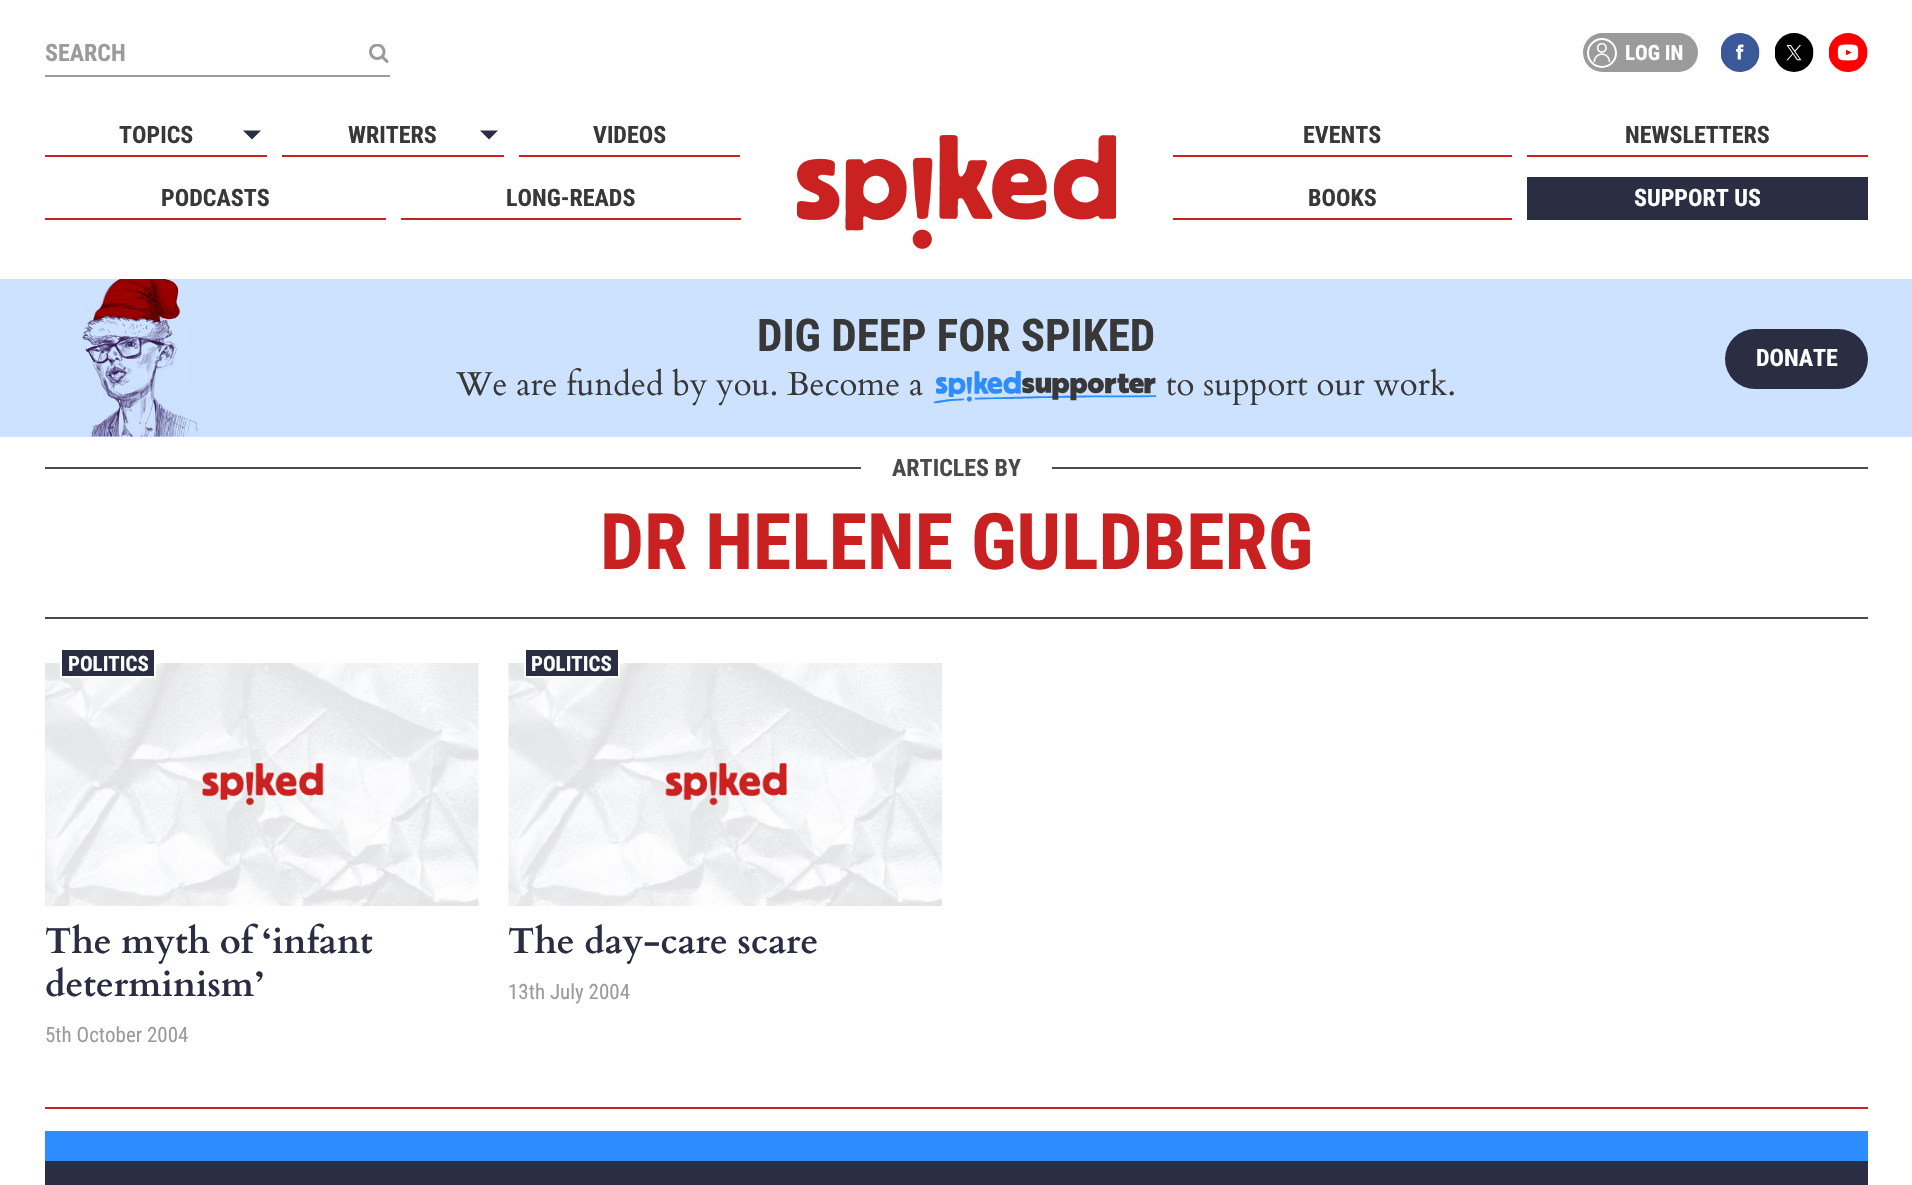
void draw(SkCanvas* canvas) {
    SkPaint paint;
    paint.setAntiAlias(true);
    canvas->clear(0xFFFFFFFF);
    paint.setColor(0xFF9B9B9B);
    canvas->drawRect(SkRect::MakeXYWH(45, 75, 345, 2), paint);
    SkFont font1(fontMgr->matchFamilyStyle("Roboto Condensed", SkFontStyle::Bold()), 24);
    font1.setSubpixel(true);
    canvas->drawString("SEARCH", 45, 61, font1, paint);
    canvas->drawImageRect(SkImages::DeferredFromEncodedData(SkData::MakeFromFileName("img1.png")), SkRect::MakeXYWH(369, 44, 20, 19), SkSamplingOptions());
    canvas->drawRoundRect(SkRect::MakeXYWH(1583, 33, 115, 39), 19.5f, 19.5f, paint);
    canvas->drawImageRect(SkImages::DeferredFromEncodedData(SkData::MakeFromFileName("img2.png")), SkRect::MakeXYWH(1593, 42, 18, 21), SkSamplingOptions());
    paint.setStyle(SkPaint::kStroke_Style);
    paint.setStrokeWidth(2);
    paint.setColor(0xFFFFFFFF);
    canvas->drawCircle(1602, 53, 14, paint);
    SkFont font2(fontMgr->matchFamilyStyle("Roboto Condensed", SkFontStyle::Bold()), 21);
    font2.setSubpixel(true);
    paint.setStyle(SkPaint::kFill_Style);
    canvas->drawString("LOG IN", 1625, 60, font2, paint);
    canvas->drawImageRect(SkImages::DeferredFromEncodedData(SkData::MakeFromFileName("img3.png")), SkRect::MakeXYWH(1721, 33, 39, 39), SkSamplingOptions());
    canvas->drawImageRect(SkImages::DeferredFromEncodedData(SkData::MakeFromFileName("img4.png")), SkRect::MakeXYWH(1775, 33, 39, 39), SkSamplingOptions());
    canvas->drawImageRect(SkImages::DeferredFromEncodedData(SkData::MakeFromFileName("img5.png")), SkRect::MakeXYWH(1829, 33, 39, 39), SkSamplingOptions());
    paint.setColor(0xFFC92121);
    canvas->drawRect(SkRect::MakeXYWH(45, 155, 222, 2), paint);
    paint.setColor(0xFF383838);
    canvas->drawString("TOPICS", 119, 143, font1, paint);
    paint.setColor(0xFF2B2E42);
    canvas->drawPath(SkPathBuilder().moveTo(243, 130.5f).lineTo(261, 130.5f).lineTo(252, 139.5f).close().detach(), paint);
    paint.setColor(0xFFC92121);
    canvas->drawRect(SkRect::MakeXYWH(282, 155, 222, 2), paint);
    paint.setColor(0xFF383838);
    canvas->drawString("WRITERS", 348, 143, font1, paint);
    paint.setColor(0xFF2B2E42);
    canvas->drawPath(SkPathBuilder().moveTo(480, 130.5f).lineTo(498, 130.5f).lineTo(489, 139.5f).close().detach(), paint);
    paint.setColor(0xFFC92121);
    canvas->drawRect(SkRect::MakeXYWH(519, 155, 221, 2), paint);
    paint.setColor(0xFF383838);
    canvas->drawString("VIDEOS", 593, 143, font1, paint);
    paint.setColor(0xFFC92121);
    canvas->drawRect(SkRect::MakeXYWH(45, 218, 341, 2), paint);
    paint.setColor(0xFF383838);
    canvas->drawString("PODCASTS", 161, 206, font1, paint);
    paint.setColor(0xFFC92121);
    canvas->drawRect(SkRect::MakeXYWH(401, 218, 340, 2), paint);
    paint.setColor(0xFF383838);
    canvas->drawString("LONG-READS", 506, 206, font1, paint);
    paint.setColor(0xFFC92121);
    canvas->drawRect(SkRect::MakeXYWH(1173, 155, 339, 2), paint);
    paint.setColor(0xFF383838);
    canvas->drawString("EVENTS", 1303, 143, font1, paint);
    paint.setColor(0xFFC92121);
    canvas->drawRect(SkRect::MakeXYWH(1527, 155, 341, 2), paint);
    paint.setColor(0xFF383838);
    canvas->drawString("NEWSLETTERS", 1625, 143, font1, paint);
    paint.setColor(0xFFC92121);
    canvas->drawRect(SkRect::MakeXYWH(1173, 218, 339, 2), paint);
    paint.setColor(0xFF383838);
    canvas->drawString("BOOKS", 1308, 206, font1, paint);
    paint.setColor(0xFF2B2E42);
    canvas->drawRect(SkRect::MakeXYWH(1527, 177, 341, 43), paint);
    paint.setColor(0xFFFFFFFF);
    canvas->drawString("SUPPORT US", 1634, 206, font1, paint);
    canvas->drawImageRect(SkImages::DeferredFromEncodedData(SkData::MakeFromFileName("img6.png")), SkRect::MakeXYWH(797, 135, 319, 114), SkSamplingOptions());
    paint.setColor(0xFFCDE2FF);
    canvas->drawRect(SkRect::MakeXYWH(0, 279, 1912, 158), paint);
    canvas->drawImageRect(SkImages::DeferredFromEncodedData(SkData::MakeFromFileName("img7.png")), SkRect::MakeXYWH(82, 279, 116, 158), SkSamplingOptions());
    SkFont font3(fontMgr->matchFamilyStyle("Roboto Condensed", SkFontStyle::Bold()), 45);
    font3.setSubpixel(true);
    paint.setColor(0xFF383838);
    canvas->drawString("DIG DEEP FOR SPIKED", 757, 351, font3, paint);
    paint.setColor(0xFF2B2E42);
    canvas->drawRoundRect(SkRect::MakeXYWH(1725, 329, 143, 60), 30, 30, paint);
    paint.setColor(0xFFFFFFFF);
    canvas->drawString("DONATE", 1756, 366, font1, paint);
    SkFont font4(fontMgr->matchFamilyStyle("Cardo", SkFontStyle::Normal()), 33);
    font4.setSubpixel(true);
    paint.setColor(0xFF383838);
    canvas->drawString("We are funded by you. Become a", 456, 395, font4, paint);
    canvas->drawImageRect(SkImages::DeferredFromEncodedData(SkData::MakeFromFileName("img8.png")), SkRect::MakeXYWH(933, 371, 224, 33), SkSamplingOptions());
    canvas->drawString("to support our work.", 1166, 395, font4, paint);
    paint.setColor(0xFF4A4A4A);
    canvas->drawRect(SkRect::MakeXYWH(45, 467, 1823, 2), paint);
    canvas->drawRect(SkRect::MakeXYWH(45, 617, 1823, 2), paint);
    paint.setColor(0xFFFFFFFF);
    canvas->drawRect(SkRect::MakeXYWH(861, 467, 191, 2), paint);
    paint.setColor(0xFF4A4A4A);
    canvas->drawString("ARTICLES BY", 892, 476, font1, paint);
    SkFont font5(fontMgr->matchFamilyStyle("Roboto Condensed", SkFontStyle::Bold()), 78);
    font5.setSubpixel(true);
    paint.setColor(0xFFC92121);
    canvas->drawString("DR HELENE GULDBERG", 600, 569, font5, paint);
    canvas->drawImageRect(SkImages::DeferredFromEncodedData(SkData::MakeFromFileName("img9.png")), SkRect::MakeXYWH(45, 663, 434, 243), SkSamplingOptions());
    paint.setColor(0xFF2B2E42);
    canvas->drawRect(SkRect::MakeXYWH(61, 649, 94, 28), paint);
    paint.setStyle(SkPaint::kStroke_Style);
    paint.setColor(0xFFFFFFFF);
    canvas->drawRect(SkRect::MakeXYWH(61, 649, 94, 28), paint);
    paint.setStyle(SkPaint::kFill_Style);
    canvas->drawString("POLITICS", 68, 671, font2, paint);
    SkFont font6(fontMgr->matchFamilyStyle("Cardo", SkFontStyle::Bold()), 36);
    font6.setSubpixel(true);
    paint.setColor(0xFF2B2E42);
    canvas->drawString("The myth of ‘infant", 45, 953, font6, paint);
    canvas->drawString("determinism’", 45, 996, font6, paint);
    SkFont font7(fontMgr->matchFamilyStyle("Roboto Condensed", SkFontStyle::Normal()), 21);
    font7.setSubpixel(true);
    paint.setColor(0xFF9B9B9B);
    canvas->drawString("5th October 2004", 45, 1042, font7, paint);
    canvas->drawImageRect(SkImages::DeferredFromEncodedData(SkData::MakeFromFileName("img10.png")), SkRect::MakeXYWH(508, 663, 434, 243), SkSamplingOptions());
    paint.setColor(0xFF2B2E42);
    canvas->drawRect(SkRect::MakeXYWH(525, 649, 94, 28), paint);
    paint.setStyle(SkPaint::kStroke_Style);
    paint.setColor(0xFFFFFFFF);
    canvas->drawRect(SkRect::MakeXYWH(525, 649, 94, 28), paint);
    paint.setStyle(SkPaint::kFill_Style);
    canvas->drawString("POLITICS", 531, 671, font2, paint);
    paint.setColor(0xFF2B2E42);
    canvas->drawString("The day-care scare", 508, 953, font6, paint);
    paint.setColor(0xFF9B9B9B);
    canvas->drawString("13th July 2004", 508, 999, font7, paint);
    paint.setColor(0xFFC92121);
    canvas->drawRect(SkRect::MakeXYWH(45, 1107, 1823, 2), paint);
    paint.setColor(0xFF2B2E42);
    canvas->drawRect(SkRect::MakeXYWH(45, 1161, 1823, 24), paint);
    paint.setColor(0xFF2D8CFF);
    canvas->drawRect(SkRect::MakeXYWH(45, 1131, 1823, 30), paint);
}
